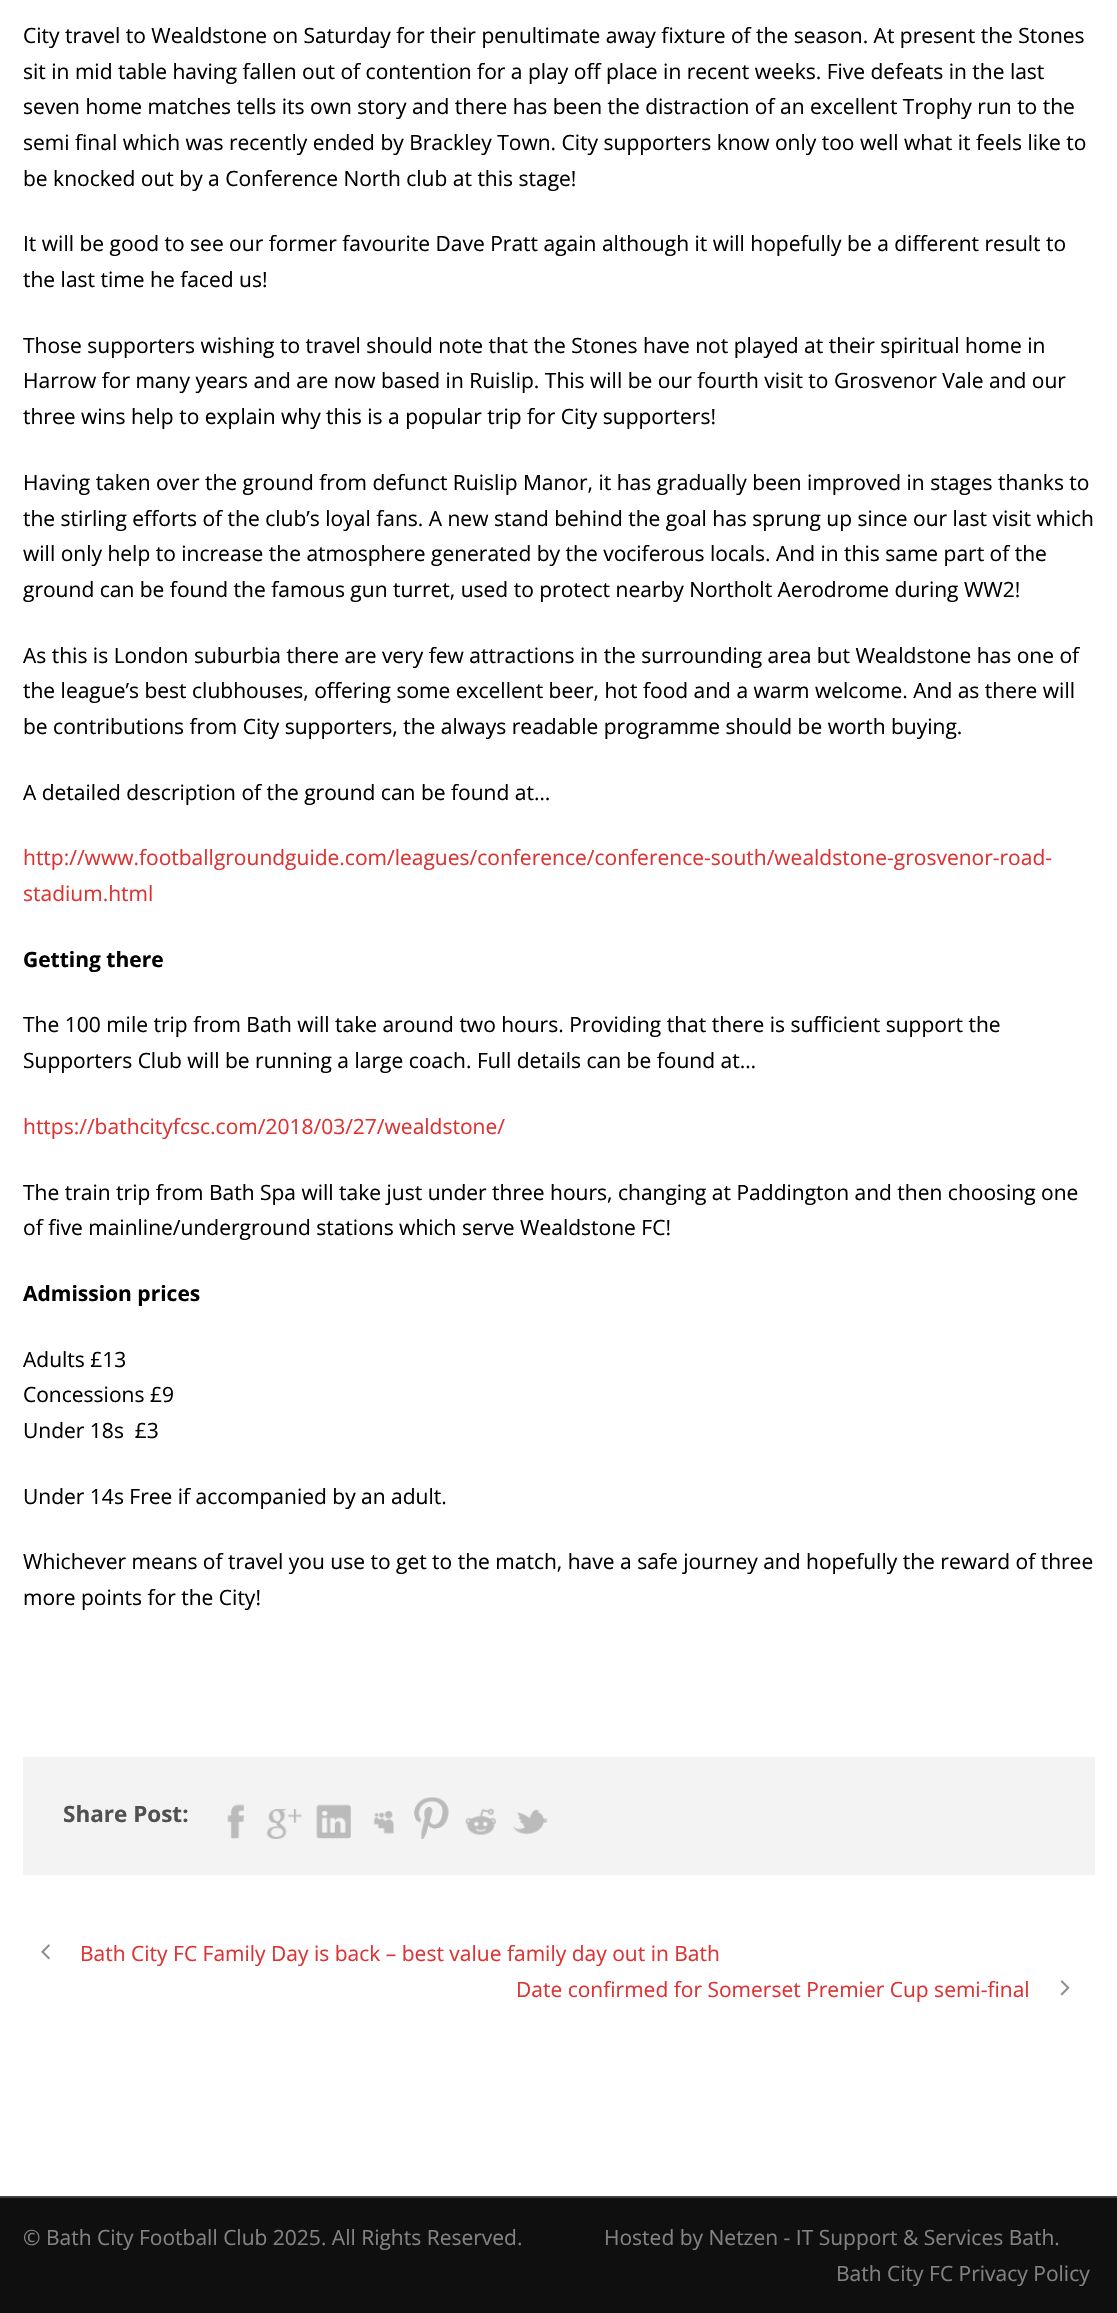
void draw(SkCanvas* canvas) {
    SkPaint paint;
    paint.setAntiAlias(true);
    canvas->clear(0xFFFFFFFF);
    SkFont font1(fontMgr->matchFamilyStyle("Open Sans", SkFontStyle::Normal()), 21);
    font1.setSubpixel(true);
    paint.setColor(0xFF000000);
    canvas->drawString("City travel to Wealdstone on Saturday for their penultimate away fixture of the season. At present the Stones", 23, 43, font1, paint);
    canvas->drawString("sit in mid table having fallen out of contention for a play off place in recent weeks. Five defeats in the last", 23, 79, font1, paint);
    canvas->drawString("seven home matches tells its own story and there has been the distraction of an excellent Trophy run to the", 23, 114, font1, paint);
    canvas->drawString("semi final which was recently ended by Brackley Town. City supporters know only too well what it feels like to", 23, 150, font1, paint);
    canvas->drawString("be knocked out by a Conference North club at this stage!", 23, 186, font1, paint);
    canvas->drawString("It will be good to see our former favourite Dave Pratt again although it will hopefully be a different result to", 23, 251, font1, paint);
    canvas->drawString("the last time he faced us!", 23, 287, font1, paint);
    canvas->drawString("Those supporters wishing to travel should note that the Stones have not played at their spiritual home in", 23, 353, font1, paint);
    canvas->drawString("Harrow for many years and are now based in Ruislip. This will be our fourth visit to Grosvenor Vale and our", 23, 388, font1, paint);
    canvas->drawString("three wins help to explain why this is a popular trip for City supporters!", 23, 424, font1, paint);
    canvas->drawString("Having taken over the ground from defunct Ruislip Manor, it has gradually been improved in stages thanks to", 23, 490, font1, paint);
    canvas->drawString("the stirling efforts of the club’s loyal fans. A new stand behind the goal has sprung up since our last visit which", 23, 526, font1, paint);
    canvas->drawString("will only help to increase the atmosphere generated by the vociferous locals. And in this same part of the", 23, 561, font1, paint);
    canvas->drawString("ground can be found the famous gun turret, used to protect nearby Northolt Aerodrome during WW2!", 23, 597, font1, paint);
    canvas->drawString("As this is London suburbia there are very few attractions in the surrounding area but Wealdstone has one of", 23, 663, font1, paint);
    canvas->drawString("the league’s best clubhouses, offering some excellent beer, hot food and a warm welcome. And as there will", 23, 698, font1, paint);
    canvas->drawString("be contributions from City supporters, the always readable programme should be worth buying.", 23, 734, font1, paint);
    canvas->drawString("A detailed description of the ground can be found at…", 23, 800, font1, paint);
    paint.setColor(0xFFDD3333);
    canvas->drawString("http://www.footballgroundguide.com/leagues/conference/conference-south/wealdstone-grosvenor-road-", 23, 865, font1, paint);
    canvas->drawString("stadium.html", 23, 901, font1, paint);
    SkFont font2(fontMgr->matchFamilyStyle("Open Sans", SkFontStyle::Bold()), 21);
    font2.setSubpixel(true);
    paint.setColor(0xFF000000);
    canvas->drawString("Getting there", 23, 967, font2, paint);
    canvas->drawString("The 100 mile trip from Bath will take around two hours. Providing that there is sufficient support the", 23, 1032, font1, paint);
    canvas->drawString("Supporters Club will be running a large coach. Full details can be found at…", 23, 1068, font1, paint);
    paint.setColor(0xFFDD3333);
    canvas->drawString("https://bathcityfcsc.com/2018/03/27/wealdstone/", 23, 1134, font1, paint);
    paint.setColor(0xFF000000);
    canvas->drawString("The train trip from Bath Spa will take just under three hours, changing at Paddington and then choosing one", 23, 1200, font1, paint);
    canvas->drawString("of five mainline/underground stations which serve Wealdstone FC!", 23, 1235, font1, paint);
    canvas->drawString("Admission prices", 23, 1301, font2, paint);
    canvas->drawString("Adults £13", 23, 1367, font1, paint);
    canvas->drawString("Concessions £9", 23, 1402, font1, paint);
    canvas->drawString("Under 18s  £3", 23, 1438, font1, paint);
    canvas->drawString("Under 14s Free if accompanied by an adult.", 23, 1504, font1, paint);
    canvas->drawString("Whichever means of travel you use to get to the match, have a safe journey and hopefully the reward of three", 23, 1569, font1, paint);
    canvas->drawString("more points for the City!", 23, 1605, font1, paint);
    paint.setColor(0xFFF3F3F3);
    canvas->drawRect(SkRect::MakeXYWH(23, 1757, 1072, 118), paint);
    SkFont font3(fontMgr->matchFamilyStyle("Open Sans", SkFontStyle::Bold()), 22.5f);
    font3.setSubpixel(true);
    paint.setColor(0xFF515151);
    canvas->drawString("Share Post:", 63, 1822, font3, paint);
    canvas->drawImageRect(SkImages::DeferredFromEncodedData(SkData::MakeFromFileName("img1.png")), SkRect::MakeXYWH(227, 1804, 17, 35), SkSamplingOptions());
    canvas->drawImageRect(SkImages::DeferredFromEncodedData(SkData::MakeFromFileName("img2.png")), SkRect::MakeXYWH(267, 1809, 35, 30), SkSamplingOptions());
    canvas->drawImageRect(SkImages::DeferredFromEncodedData(SkData::MakeFromFileName("img3.png")), SkRect::MakeXYWH(316, 1804, 35, 35), SkSamplingOptions());
    canvas->drawImageRect(SkImages::DeferredFromEncodedData(SkData::MakeFromFileName("img4.png")), SkRect::MakeXYWH(373, 1811, 21, 23), SkSamplingOptions());
    canvas->drawImageRect(SkImages::DeferredFromEncodedData(SkData::MakeFromFileName("img5.png")), SkRect::MakeXYWH(414, 1797, 35, 42), SkSamplingOptions());
    canvas->drawImageRect(SkImages::DeferredFromEncodedData(SkData::MakeFromFileName("img6.png")), SkRect::MakeXYWH(465, 1808, 31, 27), SkSamplingOptions());
    canvas->drawImageRect(SkImages::DeferredFromEncodedData(SkData::MakeFromFileName("img7.png")), SkRect::MakeXYWH(513, 1809, 35, 26), SkSamplingOptions());
    canvas->drawImageRect(SkImages::DeferredFromEncodedData(SkData::MakeFromFileName("img8.png")), SkRect::MakeXYWH(41, 1944, 9, 16), SkSamplingOptions());
    paint.setColor(0xFFDD3333);
    canvas->drawString("Bath City FC Family Day is back – best value family day out in Bath", 80, 1961, font1, paint);
    canvas->drawString("Date confirmed for Somerset Premier Cup semi-final", 516, 1997, font1, paint);
    canvas->drawImageRect(SkImages::DeferredFromEncodedData(SkData::MakeFromFileName("img9.png")), SkRect::MakeXYWH(1060, 1980, 10, 16), SkSamplingOptions());
    paint.setColor(0xFF0F0F0F);
    canvas->drawRect(SkRect::MakeXYWH(0, 2198, 1117, 115), paint);
    paint.setColor(0xFF3F3F3F);
    canvas->drawRect(SkRect::MakeXYWH(0, 2196, 1117, 2), paint);
    paint.setColor(0xFF828282);
    canvas->drawString("© Bath City Football Club 2025. All Rights Reserved.", 23, 2245, font1, paint);
    canvas->drawString("Hosted by Netzen - IT Support & Services Bath.", 604, 2245, font1, paint);
    canvas->drawString("Bath City FC Privacy Policy", 836, 2281, font1, paint);
}
